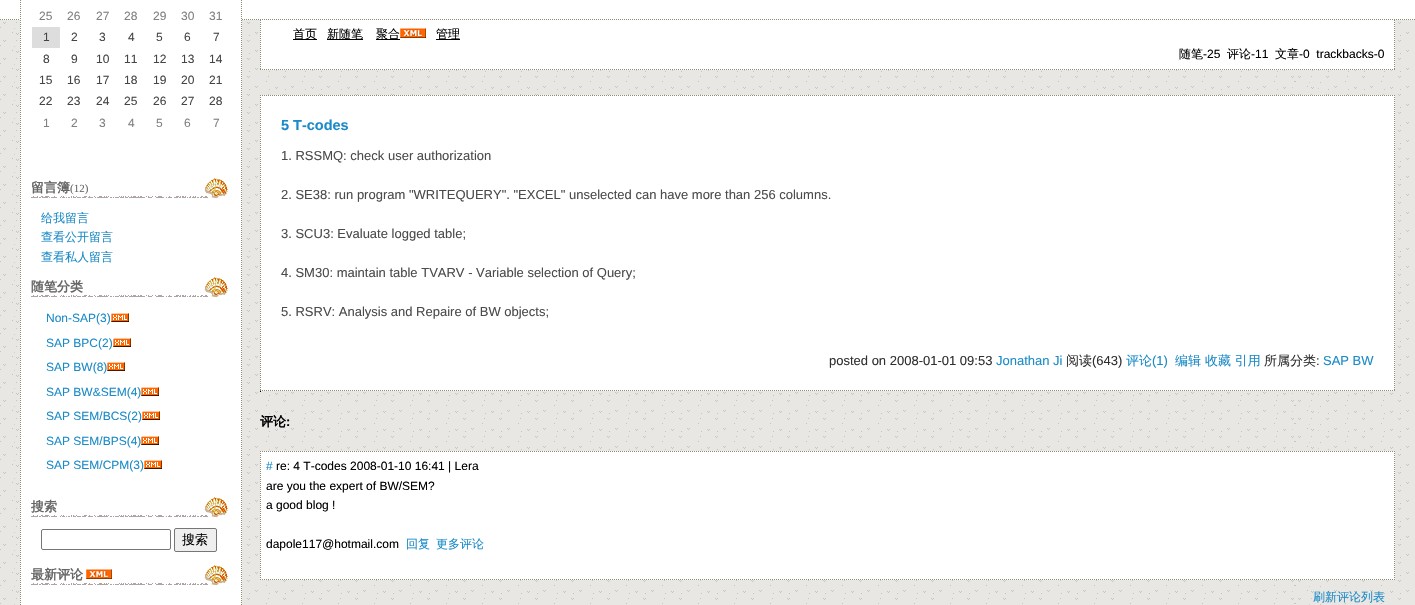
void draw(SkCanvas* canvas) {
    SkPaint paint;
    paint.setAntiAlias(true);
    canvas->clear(0xFFFFFFFF);
    canvas->drawImageRect(SkImages::DeferredFromEncodedData(SkData::MakeFromFileName("img1.png")), SkRect::MakeXYWH(0, 20, 1415, 585), SkSamplingOptions());
    paint.setStyle(SkPaint::kStroke_Style);
    paint.setStrokeWidth(1);
    paint.setColor(0xFF8B8D72);
    paint.setPathEffect(SkDashPathEffect::Make({{1, 1}}, 0));
    canvas->drawPath(SkPathBuilder().moveTo(0, 19.5f).lineTo(1415, 19.5f).detach(), paint);
    paint.setPathEffect(nullptr);
    paint.setStyle(SkPaint::kFill_Style);
    paint.setColor(0xFFFFFFFF);
    canvas->drawRect(SkRect::MakeXYWH(20, 19, 222, 586), paint);
    paint.setStyle(SkPaint::kStroke_Style);
    paint.setColor(0xFF8B8D72);
    paint.setPathEffect(SkDashPathEffect::Make({{1, 1}}, 0));
    canvas->drawPath(SkPathBuilder().moveTo(241.5f, -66).lineTo(241.5f, 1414).detach(), paint);
    paint.setPathEffect(nullptr);
    paint.setPathEffect(SkDashPathEffect::Make({{1, 1}}, 0));
    canvas->drawPath(SkPathBuilder().moveTo(20.5f, -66).lineTo(20.5f, 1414).detach(), paint);
    paint.setPathEffect(nullptr);
    SkFont font1(fontMgr->matchFamilyStyle("Liberation Sans", SkFontStyle::Normal()), 12);
    font1.setSubpixel(true);
    paint.setStyle(SkPaint::kFill_Style);
    paint.setColor(0xFF808080);
    canvas->drawString("25", 39, 20, font1, paint);
    canvas->drawString("26", 67, 20, font1, paint);
    canvas->drawString("27", 96, 20, font1, paint);
    canvas->drawString("28", 124, 20, font1, paint);
    canvas->drawString("29", 153, 20, font1, paint);
    canvas->drawString("30", 181, 20, font1, paint);
    canvas->drawString("31", 209, 20, font1, paint);
    paint.setColor(0xFFDDDDDD);
    canvas->drawRect(SkRect::MakeXYWH(32, 27, 28, 21), paint);
    paint.setColor(0xFF454545);
    canvas->drawString("1", 43, 41, font1, paint);
    canvas->drawString("2", 71, 41, font1, paint);
    canvas->drawString("3", 99, 41, font1, paint);
    canvas->drawString("4", 128, 41, font1, paint);
    canvas->drawString("5", 156, 41, font1, paint);
    canvas->drawString("6", 184, 41, font1, paint);
    canvas->drawString("7", 213, 41, font1, paint);
    canvas->drawString("8", 43, 63, font1, paint);
    canvas->drawString("9", 71, 63, font1, paint);
    canvas->drawString("10", 96, 63, font1, paint);
    canvas->drawString("11", 124, 63, font1, paint);
    canvas->drawString("12", 153, 63, font1, paint);
    canvas->drawString("13", 181, 63, font1, paint);
    canvas->drawString("14", 209, 63, font1, paint);
    canvas->drawString("15", 39, 84, font1, paint);
    canvas->drawString("16", 67, 84, font1, paint);
    canvas->drawString("17", 96, 84, font1, paint);
    canvas->drawString("18", 124, 84, font1, paint);
    canvas->drawString("19", 153, 84, font1, paint);
    canvas->drawString("20", 181, 84, font1, paint);
    canvas->drawString("21", 209, 84, font1, paint);
    canvas->drawString("22", 39, 105, font1, paint);
    canvas->drawString("23", 67, 105, font1, paint);
    canvas->drawString("24", 96, 105, font1, paint);
    canvas->drawString("25", 124, 105, font1, paint);
    canvas->drawString("26", 153, 105, font1, paint);
    canvas->drawString("27", 181, 105, font1, paint);
    canvas->drawString("28", 209, 105, font1, paint);
    paint.setColor(0xFF808080);
    canvas->drawString("1", 43, 127, font1, paint);
    canvas->drawString("2", 71, 127, font1, paint);
    canvas->drawString("3", 99, 127, font1, paint);
    canvas->drawString("4", 128, 127, font1, paint);
    canvas->drawString("5", 156, 127, font1, paint);
    canvas->drawString("6", 184, 127, font1, paint);
    canvas->drawString("7", 213, 127, font1, paint);
    canvas->drawImageRect(SkImages::DeferredFromEncodedData(SkData::MakeFromFileName("img2.png")), SkRect::MakeXYWH(31, 178, 197, 21), SkSamplingOptions());
    SkFont font2(fontMgr->matchFamilyStyle("WenQuanYi Zen Hei", SkFontStyle::Bold()), 13);
    font2.setSubpixel(true);
    paint.setColor(0xFF666666);
    canvas->drawString("留言簿", 31, 192, font2, paint);
    SkFont font3(fontMgr->matchFamilyStyle("Liberation Serif", SkFontStyle::Normal()), 11);
    font3.setSubpixel(true);
    canvas->drawString("(12)", 70, 192, font3, paint);
    SkFont font4(fontMgr->matchFamilyStyle("WenQuanYi Zen Hei", SkFontStyle(500, SkFontStyle::kNormal_Width, SkFontStyle::kUpright_Slant)), 12);
    font4.setSubpixel(true);
    paint.setColor(0xFF1A8BC8);
    canvas->drawString("给我留言", 41, 222, font4, paint);
    canvas->drawString("查看公开留言", 41, 241, font4, paint);
    canvas->drawString("查看私人留言", 41, 261, font4, paint);
    canvas->drawImageRect(SkImages::DeferredFromEncodedData(SkData::MakeFromFileName("img2.png")), SkRect::MakeXYWH(31, 277, 197, 21), SkSamplingOptions());
    paint.setColor(0xFF666666);
    canvas->drawString("随笔分类", 31, 291, font2, paint);
    paint.setColor(0xFF1A8BC8);
    canvas->drawString("Non-SAP(3)", 46, 322, font1, paint);
    canvas->drawImageRect(SkImages::DeferredFromEncodedData(SkData::MakeFromFileName("img3.png")), SkRect::MakeXYWH(111, 313, 18, 9), SkSamplingOptions());
    canvas->drawString("SAP BPC(2)", 46, 347, font1, paint);
    canvas->drawImageRect(SkImages::DeferredFromEncodedData(SkData::MakeFromFileName("img3.png")), SkRect::MakeXYWH(113, 338, 18, 9), SkSamplingOptions());
    canvas->drawString("SAP BW(8)", 46, 371, font1, paint);
    canvas->drawImageRect(SkImages::DeferredFromEncodedData(SkData::MakeFromFileName("img3.png")), SkRect::MakeXYWH(107, 362, 18, 9), SkSamplingOptions());
    canvas->drawString("SAP BW&SEM(4)", 46, 396, font1, paint);
    canvas->drawImageRect(SkImages::DeferredFromEncodedData(SkData::MakeFromFileName("img3.png")), SkRect::MakeXYWH(141, 387, 18, 9), SkSamplingOptions());
    canvas->drawString("SAP SEM/BCS(2)", 46, 420, font1, paint);
    canvas->drawImageRect(SkImages::DeferredFromEncodedData(SkData::MakeFromFileName("img3.png")), SkRect::MakeXYWH(142, 411, 18, 9), SkSamplingOptions());
    canvas->drawString("SAP SEM/BPS(4)", 46, 445, font1, paint);
    canvas->drawImageRect(SkImages::DeferredFromEncodedData(SkData::MakeFromFileName("img3.png")), SkRect::MakeXYWH(141, 436, 18, 9), SkSamplingOptions());
    canvas->drawString("SAP SEM/CPM(3)", 46, 469, font1, paint);
    canvas->drawImageRect(SkImages::DeferredFromEncodedData(SkData::MakeFromFileName("img3.png")), SkRect::MakeXYWH(144, 460, 18, 9), SkSamplingOptions());
    canvas->drawImageRect(SkImages::DeferredFromEncodedData(SkData::MakeFromFileName("img2.png")), SkRect::MakeXYWH(31, 497, 197, 21), SkSamplingOptions());
    paint.setColor(0xFF666666);
    canvas->drawString("搜索", 31, 511, font2, paint);
    paint.setStyle(SkPaint::kStroke_Style);
    paint.setColor(0xFF767676);
    canvas->drawRoundRect(SkRect::MakeXYWH(41.5f, 529.5f, 129, 20), 1.5f, 1.5f, paint);
    paint.setStyle(SkPaint::kFill_Style);
    paint.setColor(0xFFEFEFEF);
    canvas->drawRoundRect(SkRect::MakeXYWH(174.5f, 528.5f, 42, 23), 1.5f, 1.5f, paint);
    paint.setStyle(SkPaint::kStroke_Style);
    paint.setColor(0xFF767676);
    canvas->drawRoundRect(SkRect::MakeXYWH(174.5f, 528.5f, 42, 23), 1.5f, 1.5f, paint);
    SkFont font5(fontMgr->matchFamilyStyle("WenQuanYi Zen Hei", SkFontStyle(500, SkFontStyle::kNormal_Width, SkFontStyle::kUpright_Slant)), 13);
    font5.setSubpixel(true);
    paint.setStyle(SkPaint::kFill_Style);
    paint.setColor(0xFF000000);
    canvas->drawString("搜索", 182, 544, font5, paint);
    canvas->drawImageRect(SkImages::DeferredFromEncodedData(SkData::MakeFromFileName("img2.png")), SkRect::MakeXYWH(31, 565, 197, 21), SkSamplingOptions());
    paint.setColor(0xFF666666);
    canvas->drawString("最新评论", 31, 579, font2, paint);
    canvas->drawImageRect(SkImages::DeferredFromEncodedData(SkData::MakeFromFileName("img4.png")), SkRect::MakeXYWH(86, 569, 26, 10), SkSamplingOptions());
    paint.setColor(0xFFFFFFFF);
    canvas->drawRect(SkRect::MakeXYWH(260, 20, 1135, 50), paint);
    paint.setStyle(SkPaint::kStroke_Style);
    paint.setColor(0xFF8B8D72);
    paint.setPathEffect(SkDashPathEffect::Make({{1, 1}}, 0));
    canvas->drawPath(SkPathBuilder().moveTo(1394.5f, 20).lineTo(1394.5f, 70).detach(), paint);
    paint.setPathEffect(nullptr);
    paint.setPathEffect(SkDashPathEffect::Make({{1, 1}}, 0));
    canvas->drawPath(SkPathBuilder().moveTo(260, 69.5f).lineTo(1395, 69.5f).detach(), paint);
    paint.setPathEffect(nullptr);
    paint.setPathEffect(SkDashPathEffect::Make({{1, 1}}, 0));
    canvas->drawPath(SkPathBuilder().moveTo(260.5f, 20).lineTo(260.5f, 70).detach(), paint);
    paint.setPathEffect(nullptr);
    paint.setStyle(SkPaint::kFill_Style);
    paint.setColor(0xFF000000);
    canvas->drawRect(SkRect::MakeXYWH(293, 39, 24, 1), paint);
    canvas->drawString("首页", 293, 38, font4, paint);
    canvas->drawRect(SkRect::MakeXYWH(327, 39, 36, 1), paint);
    canvas->drawString("新随笔", 327, 38, font4, paint);
    canvas->drawRect(SkRect::MakeXYWH(376, 39, 24, 1), paint);
    canvas->drawString("聚合", 376, 38, font4, paint);
    canvas->drawImageRect(SkImages::DeferredFromEncodedData(SkData::MakeFromFileName("img4.png")), SkRect::MakeXYWH(400, 28, 26, 10), SkSamplingOptions());
    canvas->drawRect(SkRect::MakeXYWH(436, 39, 24, 1), paint);
    canvas->drawString("管理", 436, 38, font4, paint);
    canvas->drawString("随笔", 1179, 58, font4, paint);
    canvas->drawString("-25", 1203, 58, font1, paint);
    canvas->drawString("评论", 1227, 58, font4, paint);
    canvas->drawString("-11", 1251, 58, font1, paint);
    canvas->drawString("文章", 1275, 58, font4, paint);
    canvas->drawString("-0  trackbacks-0", 1299, 58, font1, paint);
    paint.setColor(0xFFFFFFFF);
    canvas->drawRect(SkRect::MakeXYWH(260, 95, 1135, 296), paint);
    paint.setStyle(SkPaint::kStroke_Style);
    paint.setColor(0xFF8B8D72);
    paint.setPathEffect(SkDashPathEffect::Make({{1, 1}}, 0));
    canvas->drawPath(SkPathBuilder().moveTo(260, 95.5f).lineTo(1395, 95.5f).detach(), paint);
    paint.setPathEffect(nullptr);
    paint.setPathEffect(SkDashPathEffect::Make({{1, 1}}, 0));
    canvas->drawPath(SkPathBuilder().moveTo(1394.5f, 95).lineTo(1394.5f, 391).detach(), paint);
    paint.setPathEffect(nullptr);
    paint.setPathEffect(SkDashPathEffect::Make({{1, 1}}, 0));
    canvas->drawPath(SkPathBuilder().moveTo(260, 390.5f).lineTo(1395, 390.5f).detach(), paint);
    paint.setPathEffect(nullptr);
    paint.setPathEffect(SkDashPathEffect::Make({{1, 1}}, 0));
    canvas->drawPath(SkPathBuilder().moveTo(260.5f, 95).lineTo(260.5f, 391).detach(), paint);
    paint.setPathEffect(nullptr);
    SkFont font6(fontMgr->matchFamilyStyle("Liberation Sans", SkFontStyle::Bold()), 14.5f);
    font6.setSubpixel(true);
    paint.setStyle(SkPaint::kFill_Style);
    paint.setColor(0xFF1A8BC8);
    canvas->drawString("5 T-codes", 281, 130, font6, paint);
    SkFont font7(fontMgr->matchFamilyStyle("Liberation Sans", SkFontStyle::Normal()), 13);
    font7.setSubpixel(true);
    paint.setColor(0xFF4B4B4B);
    canvas->drawString("1. RSSMQ: check user authorization", 281, 160, font7, paint);
    canvas->drawString("2. SE38: run program \"WRITEQUERY\". \"EXCEL\" unselected can have more than 256 columns.", 281, 199, font7, paint);
    canvas->drawString("3. SCU3: Evaluate logged table;", 281, 238, font7, paint);
    canvas->drawString("4. SM30: maintain table TVARV - Variable selection of Query;", 281, 277, font7, paint);
    canvas->drawString("5. RSRV: Analysis and Repaire of BW objects;", 281, 316, font7, paint);
    paint.setColor(0xFF303030);
    canvas->drawString("posted on 2008-01-01 09:53", 829, 365, font7, paint);
    paint.setColor(0xFF1A8BC8);
    canvas->drawString("Jonathan Ji", 996, 365, font7, paint);
    paint.setColor(0xFF303030);
    canvas->drawString("阅读", 1066, 365, font5, paint);
    canvas->drawString("(643)", 1092, 365, font7, paint);
    paint.setColor(0xFF1A8BC8);
    canvas->drawString("评论", 1126, 365, font5, paint);
    canvas->drawString("(1)", 1152, 365, font7, paint);
    canvas->drawString("编辑 收藏 引用", 1175, 365, font5, paint);
    paint.setColor(0xFF303030);
    canvas->drawString("所属分类", 1264, 365, font5, paint);
    canvas->drawString(":", 1316, 365, font7, paint);
    paint.setColor(0xFF1A8BC8);
    canvas->drawString("SAP BW", 1323, 365, font7, paint);
    paint.setColor(0xFF000000);
    canvas->drawRect(SkRect::MakeXYWH(260, 391, 1, 1), paint);
    canvas->drawString("评论", 260, 426, font2, paint);
    SkFont font8(fontMgr->matchFamilyStyle("Liberation Sans", SkFontStyle::Bold()), 13);
    font8.setSubpixel(true);
    canvas->drawString(":", 286, 426, font8, paint);
    paint.setColor(0xFFFFFFFF);
    canvas->drawRect(SkRect::MakeXYWH(260, 451, 1135, 129), paint);
    paint.setStyle(SkPaint::kStroke_Style);
    paint.setColor(0xFF8B8D72);
    paint.setPathEffect(SkDashPathEffect::Make({{1, 1}}, 0));
    canvas->drawPath(SkPathBuilder().moveTo(260, 451.5f).lineTo(1395, 451.5f).detach(), paint);
    paint.setPathEffect(nullptr);
    paint.setPathEffect(SkDashPathEffect::Make({{1, 1}}, 0));
    canvas->drawPath(SkPathBuilder().moveTo(1394.5f, 451).lineTo(1394.5f, 580).detach(), paint);
    paint.setPathEffect(nullptr);
    paint.setPathEffect(SkDashPathEffect::Make({{1, 1}}, 0));
    canvas->drawPath(SkPathBuilder().moveTo(260, 579.5f).lineTo(1395, 579.5f).detach(), paint);
    paint.setPathEffect(nullptr);
    paint.setPathEffect(SkDashPathEffect::Make({{1, 1}}, 0));
    canvas->drawPath(SkPathBuilder().moveTo(260.5f, 451).lineTo(260.5f, 580).detach(), paint);
    paint.setPathEffect(nullptr);
    paint.setStyle(SkPaint::kFill_Style);
    paint.setColor(0xFF1A8BC8);
    canvas->drawString("#", 266, 470, font1, paint);
    paint.setColor(0xFF000000);
    canvas->drawString("re: 4 T-codes 2008-01-10 16:41 | Lera", 276, 470, font1, paint);
    canvas->drawString("are you the expert of BW/SEM?", 266, 490, font1, paint);
    canvas->drawString("a good blog !", 266, 509, font1, paint);
    canvas->drawString("dapole117@hotmail.com", 266, 548, font1, paint);
    paint.setColor(0xFF1A8BC8);
    canvas->drawString("回复", 406, 548, font4, paint);
    canvas->drawString("更多评论", 436, 548, font4, paint);
    canvas->drawString("刷新评论列表", 1313, 601, font4, paint);
}
